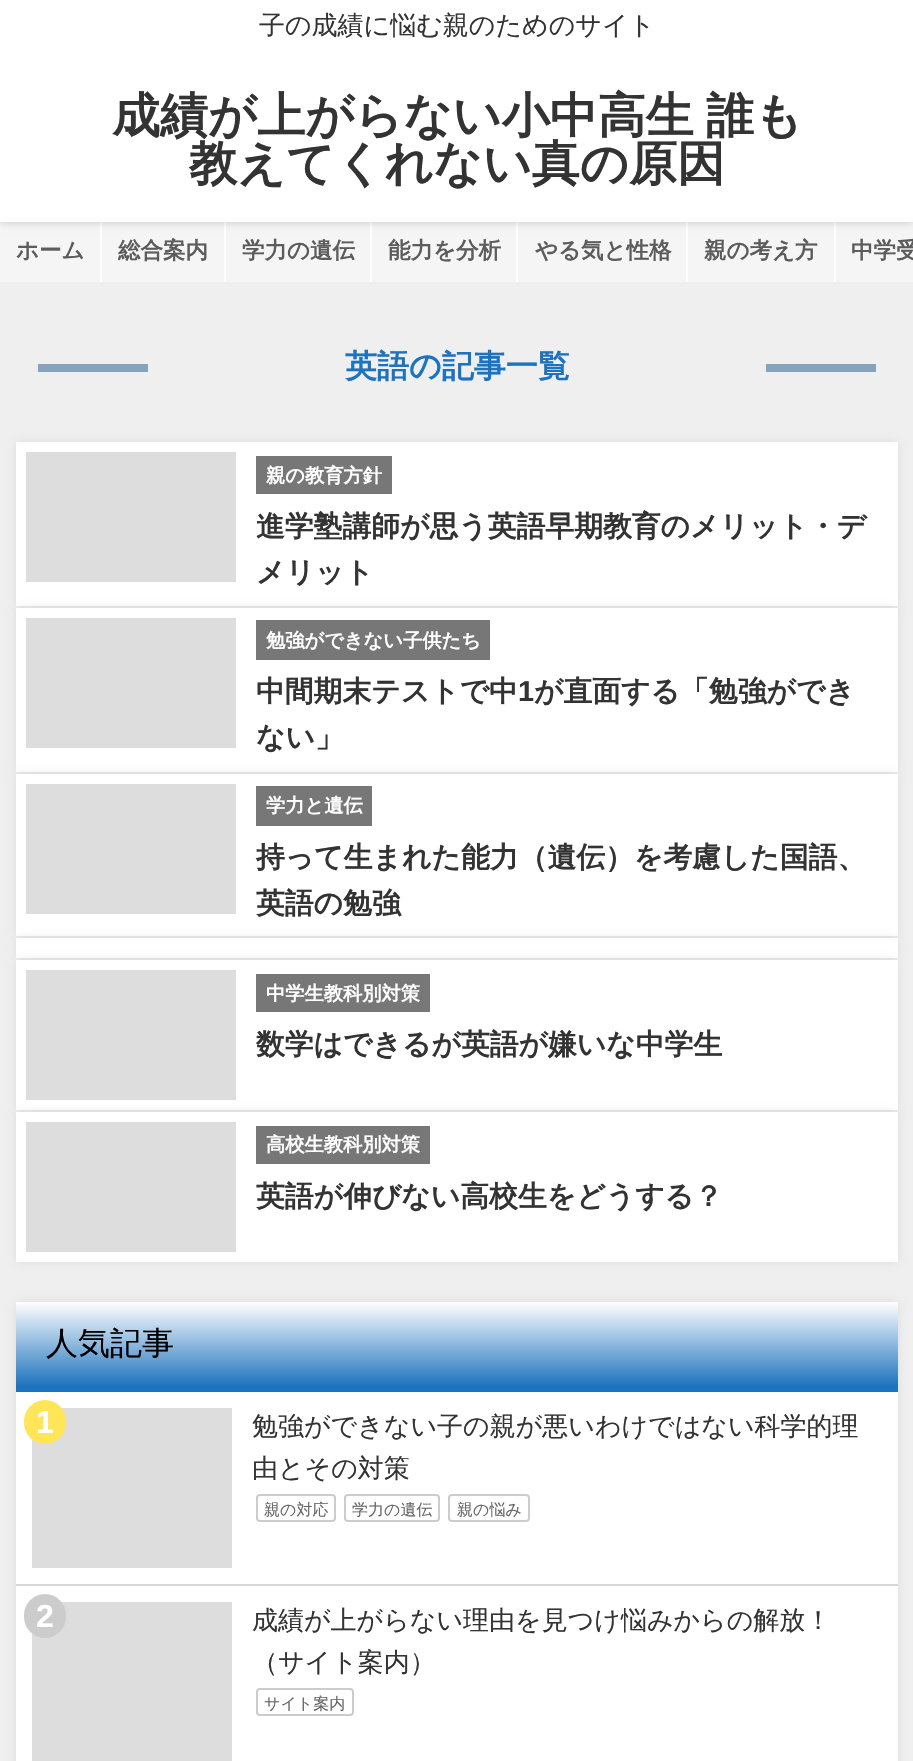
void draw(SkCanvas* canvas) {
    SkPaint paint;
    paint.setAntiAlias(true);
    auto spacedText = [&](const char* s, float x, float y, const SkFont& font, const SkPaint& ink, float letter, float word) {
        std::vector<SkGlyphID> glyphs(font.countText(s, strlen(s), SkTextEncoding::kUTF8));
        std::vector<float> xs(glyphs.size());
        font.textToGlyphs(s, strlen(s), SkTextEncoding::kUTF8, glyphs);
        font.getXPos(glyphs, xs, x);
        float extra = 0;
        for (size_t i = 0; i < glyphs.size(); i++) {
            xs[i] += extra;
            extra += letter + word * (glyphs[i] == font.unicharToGlyph(' '));
        }
        canvas->drawTextBlob(SkTextBlob::MakeFromPosHGlyphs(glyphs, xs, y, font), 0, 0, ink);
    };
    canvas->clear(0xFFEFEFEF);
    paint.setColor(0xFFFFFFFF);
    canvas->drawRect(SkRect::MakeXYWH(100, 222, 736, 60), paint);
    paint.setColor(0xFFF5F5F5);
    canvas->drawRect(SkRect::MakeXYWH(0, 222, 100, 60), paint);
    canvas->drawRect(SkRect::MakeXYWH(102, 222, 122, 60), paint);
    canvas->drawRect(SkRect::MakeXYWH(226, 222, 144, 60), paint);
    canvas->drawRect(SkRect::MakeXYWH(372, 222, 144, 60), paint);
    canvas->drawRect(SkRect::MakeXYWH(518, 222, 168, 60), paint);
    canvas->drawRect(SkRect::MakeXYWH(688, 222, 146, 60), paint);
    canvas->drawRect(SkRect::MakeXYWH(836, 222, 77, 60), paint);
    paint.setColor(0x33000000);
    paint.setMaskFilter(SkMaskFilter::MakeBlur(kNormal_SkBlurStyle, 4));
    canvas->drawRect(SkRect::MakeXYWH(0, 0, 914, 222), paint);
    paint.setMaskFilter(nullptr);
    paint.setColor(0xFFFFFFFF);
    canvas->drawRect(SkRect::MakeXYWH(0, 0, 913, 222), paint);
    SkFont font1(fontMgr->matchFamilyStyle("WenQuanYi Zen Hei", SkFontStyle(500, SkFontStyle::kNormal_Width, SkFontStyle::kUpright_Slant)), 26);
    font1.setSubpixel(true);
    paint.setColor(0xFF333333);
    canvas->drawString("子の成績に悩む親のためのサイト", 259, 34, font1, paint);
    SkFont font2(fontMgr->matchFamilyStyle("WenQuanYi Zen Hei", SkFontStyle::Bold()), 48);
    font2.setSubpixel(true);
    spacedText("成績が上がらない小中高生 誰も", 112, 132, font2, paint, 0, -2);
    canvas->drawString("教えてくれない真の原因", 189, 180, font2, paint);
    SkFont font3(fontMgr->matchFamilyStyle("WenQuanYi Zen Hei", SkFontStyle::Bold()), 22.5f);
    font3.setSubpixel(true);
    paint.setColor(0xFF5C5C5C);
    canvas->drawString("ホーム", 16, 258, font3, paint);
    canvas->drawString("総合案内", 118, 258, font3, paint);
    canvas->drawString("学力の遺伝", 242, 258, font3, paint);
    canvas->drawString("能力を分析", 388, 258, font3, paint);
    canvas->drawString("やる気と性格", 535, 258, font3, paint);
    canvas->drawString("親の考え方", 704, 258, font3, paint);
    canvas->drawString("中学受", 851, 258, font3, paint);
    paint.setColor(0xFF87A3BC);
    canvas->drawRect(SkRect::MakeXYWH(38, 364, 110, 8), paint);
    SkFont font4(fontMgr->matchFamilyStyle("WenQuanYi Zen Hei", SkFontStyle::Bold()), 32);
    font4.setSubpixel(true);
    paint.setColor(0xFF1E73BE);
    canvas->drawString("英語の記事一覧", 345, 377, font4, paint);
    paint.setColor(0xFF87A3BC);
    canvas->drawRect(SkRect::MakeXYWH(766, 364, 110, 8), paint);
    paint.setColor(0x33969696);
    paint.setMaskFilter(SkMaskFilter::MakeBlur(kNormal_SkBlurStyle, 5));
    canvas->drawRect(SkRect::MakeXYWH(16, 442, 882, 164), paint);
    paint.setMaskFilter(nullptr);
    paint.setColor(0xFFFFFFFF);
    canvas->drawRect(SkRect::MakeXYWH(16, 442, 882, 164), paint);
    paint.setColor(0xFFDDDDDD);
    canvas->drawRect(SkRect::MakeXYWH(26, 452, 210, 130), paint);
    paint.setColor(0xFF777777);
    canvas->drawRect(SkRect::MakeXYWH(256, 456, 136, 38), paint);
    SkFont font5(fontMgr->matchFamilyStyle("WenQuanYi Zen Hei", SkFontStyle::Bold()), 19.25f);
    font5.setSubpixel(true);
    paint.setColor(0xFFFFFFFF);
    canvas->drawString("親の教育方針", 266, 482, font5, paint);
    SkFont font6(fontMgr->matchFamilyStyle("WenQuanYi Zen Hei", SkFontStyle::Bold()), 28.8f);
    font6.setSubpixel(true);
    paint.setColor(0xFF333333);
    canvas->drawString("進学塾講師が思う英語早期教育のメリット・デ", 256, 536, font6, paint);
    canvas->drawString("メリット", 256, 582, font6, paint);
    paint.setColor(0x33969696);
    paint.setMaskFilter(SkMaskFilter::MakeBlur(kNormal_SkBlurStyle, 5));
    canvas->drawRect(SkRect::MakeXYWH(16, 608, 882, 164), paint);
    paint.setMaskFilter(nullptr);
    paint.setColor(0xFFFFFFFF);
    canvas->drawRect(SkRect::MakeXYWH(16, 608, 882, 164), paint);
    paint.setColor(0xFFDDDDDD);
    canvas->drawRect(SkRect::MakeXYWH(26, 618, 210, 130), paint);
    paint.setColor(0xFF777777);
    canvas->drawRect(SkRect::MakeXYWH(256, 620, 234, 40), paint);
    paint.setColor(0xFFFFFFFF);
    canvas->drawString("勉強ができない子供たち", 266, 647, font5, paint);
    paint.setColor(0xFF333333);
    canvas->drawString("中間期末テストで中", 256, 701, font6, paint);
    SkFont font7(fontMgr->matchFamilyStyle("Liberation Sans", SkFontStyle::Bold()), 28.8f);
    font7.setSubpixel(true);
    canvas->drawString("1", 518, 701, font7, paint);
    canvas->drawString("が直面する「勉強ができ", 534, 701, font6, paint);
    canvas->drawString("ない」", 256, 747, font6, paint);
    paint.setColor(0x33969696);
    paint.setMaskFilter(SkMaskFilter::MakeBlur(kNormal_SkBlurStyle, 5));
    canvas->drawRect(SkRect::MakeXYWH(16, 774, 882, 162), paint);
    paint.setMaskFilter(nullptr);
    paint.setColor(0xFFFFFFFF);
    canvas->drawRect(SkRect::MakeXYWH(16, 774, 882, 162), paint);
    paint.setColor(0xFFDDDDDD);
    canvas->drawRect(SkRect::MakeXYWH(26, 784, 210, 130), paint);
    paint.setColor(0xFF777777);
    canvas->drawRect(SkRect::MakeXYWH(256, 786, 116, 40), paint);
    paint.setColor(0xFFFFFFFF);
    canvas->drawString("学力と遺伝", 266, 812, font5, paint);
    paint.setColor(0xFF333333);
    canvas->drawString("持って生まれた能力（遺伝）を考慮した国語、", 256, 867, font6, paint);
    canvas->drawString("英語の勉強", 256, 913, font6, paint);
    paint.setColor(0x33969696);
    paint.setMaskFilter(SkMaskFilter::MakeBlur(kNormal_SkBlurStyle, 5));
    canvas->drawRect(SkRect::MakeXYWH(16, 938, 882, 20), paint);
    paint.setMaskFilter(nullptr);
    paint.setColor(0xFFFFFFFF);
    canvas->drawRect(SkRect::MakeXYWH(16, 938, 882, 20), paint);
    paint.setColor(0x33969696);
    paint.setMaskFilter(SkMaskFilter::MakeBlur(kNormal_SkBlurStyle, 5));
    canvas->drawRect(SkRect::MakeXYWH(16, 960, 882, 150), paint);
    paint.setMaskFilter(nullptr);
    paint.setColor(0xFFFFFFFF);
    canvas->drawRect(SkRect::MakeXYWH(16, 960, 882, 150), paint);
    paint.setColor(0xFFDDDDDD);
    canvas->drawRect(SkRect::MakeXYWH(26, 970, 210, 130), paint);
    paint.setColor(0xFF777777);
    canvas->drawRect(SkRect::MakeXYWH(256, 974, 174, 38), paint);
    paint.setColor(0xFFFFFFFF);
    canvas->drawString("中学生教科別対策", 266, 1000, font5, paint);
    paint.setColor(0xFF333333);
    canvas->drawString("数学はできるが英語が嫌いな中学生", 256, 1054, font6, paint);
    paint.setColor(0x33969696);
    paint.setMaskFilter(SkMaskFilter::MakeBlur(kNormal_SkBlurStyle, 5));
    canvas->drawRect(SkRect::MakeXYWH(16, 1112, 882, 150), paint);
    paint.setMaskFilter(nullptr);
    paint.setColor(0xFFFFFFFF);
    canvas->drawRect(SkRect::MakeXYWH(16, 1112, 882, 150), paint);
    paint.setColor(0xFFDDDDDD);
    canvas->drawRect(SkRect::MakeXYWH(26, 1122, 210, 130), paint);
    paint.setColor(0xFF777777);
    canvas->drawRect(SkRect::MakeXYWH(256, 1126, 174, 38), paint);
    paint.setColor(0xFFFFFFFF);
    canvas->drawString("高校生教科別対策", 266, 1151, font5, paint);
    paint.setColor(0xFF333333);
    canvas->drawString("英語が伸びない高校生をどうする？", 256, 1206, font6, paint);
    paint.setColor(0x33969696);
    paint.setMaskFilter(SkMaskFilter::MakeBlur(kNormal_SkBlurStyle, 5));
    canvas->drawRect(SkRect::MakeXYWH(16, 1302, 882, 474), paint);
    paint.setMaskFilter(nullptr);
    paint.setColor(0xFFFFFFFF);
    canvas->drawRect(SkRect::MakeXYWH(16, 1392, 882, 369), paint);
    {
        const SkColor colors[] = {0xFFFFFFFF, 0xFF1E73BE};
        const float stops[] = {0, 1};
        const SkPoint ends[] = {{457, 1302}, {457, 1386}};
        paint.setShader(SkGradientShader::MakeLinear(ends, colors, stops, 2, SkTileMode::kClamp));
        paint.setAlpha(255);
    }
    canvas->drawRect(SkRect::MakeXYWH(16, 1302, 882, 84), paint);
    paint.setShader(nullptr);
    paint.setColor(0xFF1E73BE);
    canvas->drawRect(SkRect::MakeXYWH(16, 1386, 882, 6), paint);
    SkFont font8(fontMgr->matchFamilyStyle("WenQuanYi Zen Hei", SkFontStyle(500, SkFontStyle::kNormal_Width, SkFontStyle::kUpright_Slant)), 32);
    font8.setSubpixel(true);
    paint.setColor(0xFF000000);
    canvas->drawString("人気記事", 46, 1354, font8, paint);
    paint.setColor(0xFFD6D6D6);
    canvas->drawRect(SkRect::MakeXYWH(16, 1584, 882, 2), paint);
    paint.setColor(0xFFDDDDDD);
    canvas->drawRect(SkRect::MakeXYWH(32, 1408, 200, 160), paint);
    paint.setColor(0xFFFFE658);
    canvas->drawRoundRect(SkRect::MakeXYWH(24, 1400, 42, 44), 21, 21, paint);
    SkFont font9(fontMgr->matchFamilyStyle("Liberation Sans", SkFontStyle::Bold()), 32);
    font9.setSubpixel(true);
    paint.setColor(0xFFFFFFFF);
    canvas->drawString("1", 36, 1433, font9, paint);
    paint.setColor(0xFF333333);
    canvas->drawString("勉強ができない子の親が悪いわけではない科学的理", 252, 1435, font1, paint);
    canvas->drawString("由とその対策", 252, 1477, font1, paint);
    paint.setStyle(SkPaint::kStroke_Style);
    paint.setStrokeWidth(2);
    paint.setColor(0xFFCCCCCC);
    canvas->drawRoundRect(SkRect::MakeXYWH(257, 1495, 78, 26), 3, 3, paint);
    SkFont font10(fontMgr->matchFamilyStyle("WenQuanYi Zen Hei", SkFontStyle(500, SkFontStyle::kNormal_Width, SkFontStyle::kUpright_Slant)), 16);
    font10.setSubpixel(true);
    paint.setStyle(SkPaint::kFill_Style);
    paint.setColor(0xFF666666);
    canvas->drawString("親の対応", 264, 1515, font10, paint);
    paint.setStyle(SkPaint::kStroke_Style);
    paint.setColor(0xFFCCCCCC);
    canvas->drawRoundRect(SkRect::MakeXYWH(345, 1495, 94, 26), 3, 3, paint);
    paint.setStyle(SkPaint::kFill_Style);
    paint.setColor(0xFF666666);
    canvas->drawString("学力の遺伝", 352, 1515, font10, paint);
    paint.setStyle(SkPaint::kStroke_Style);
    paint.setColor(0xFFCCCCCC);
    canvas->drawRoundRect(SkRect::MakeXYWH(449, 1495, 80, 26), 3, 3, paint);
    paint.setStyle(SkPaint::kFill_Style);
    paint.setColor(0xFF666666);
    canvas->drawString("親の悩み", 457, 1515, font10, paint);
    paint.setColor(0xFFDDDDDD);
    canvas->drawRect(SkRect::MakeXYWH(32, 1602, 200, 159), paint);
    paint.setColor(0xFFCCCCCC);
    canvas->drawRoundRect(SkRect::MakeXYWH(24, 1594, 42, 44), 21, 21, paint);
    paint.setColor(0xFFFFFFFF);
    canvas->drawString("2", 36, 1627, font9, paint);
    paint.setColor(0xFF333333);
    canvas->drawString("成績が上がらない理由を見つけ悩みからの解放！", 252, 1629, font1, paint);
    canvas->drawString("（サイト案内）", 252, 1671, font1, paint);
    paint.setStyle(SkPaint::kStroke_Style);
    paint.setColor(0xFFCCCCCC);
    canvas->drawRoundRect(SkRect::MakeXYWH(257, 1689, 96, 26), 3, 3, paint);
    paint.setStyle(SkPaint::kFill_Style);
    paint.setColor(0xFF666666);
    canvas->drawString("サイト案内", 264, 1709, font10, paint);
}
